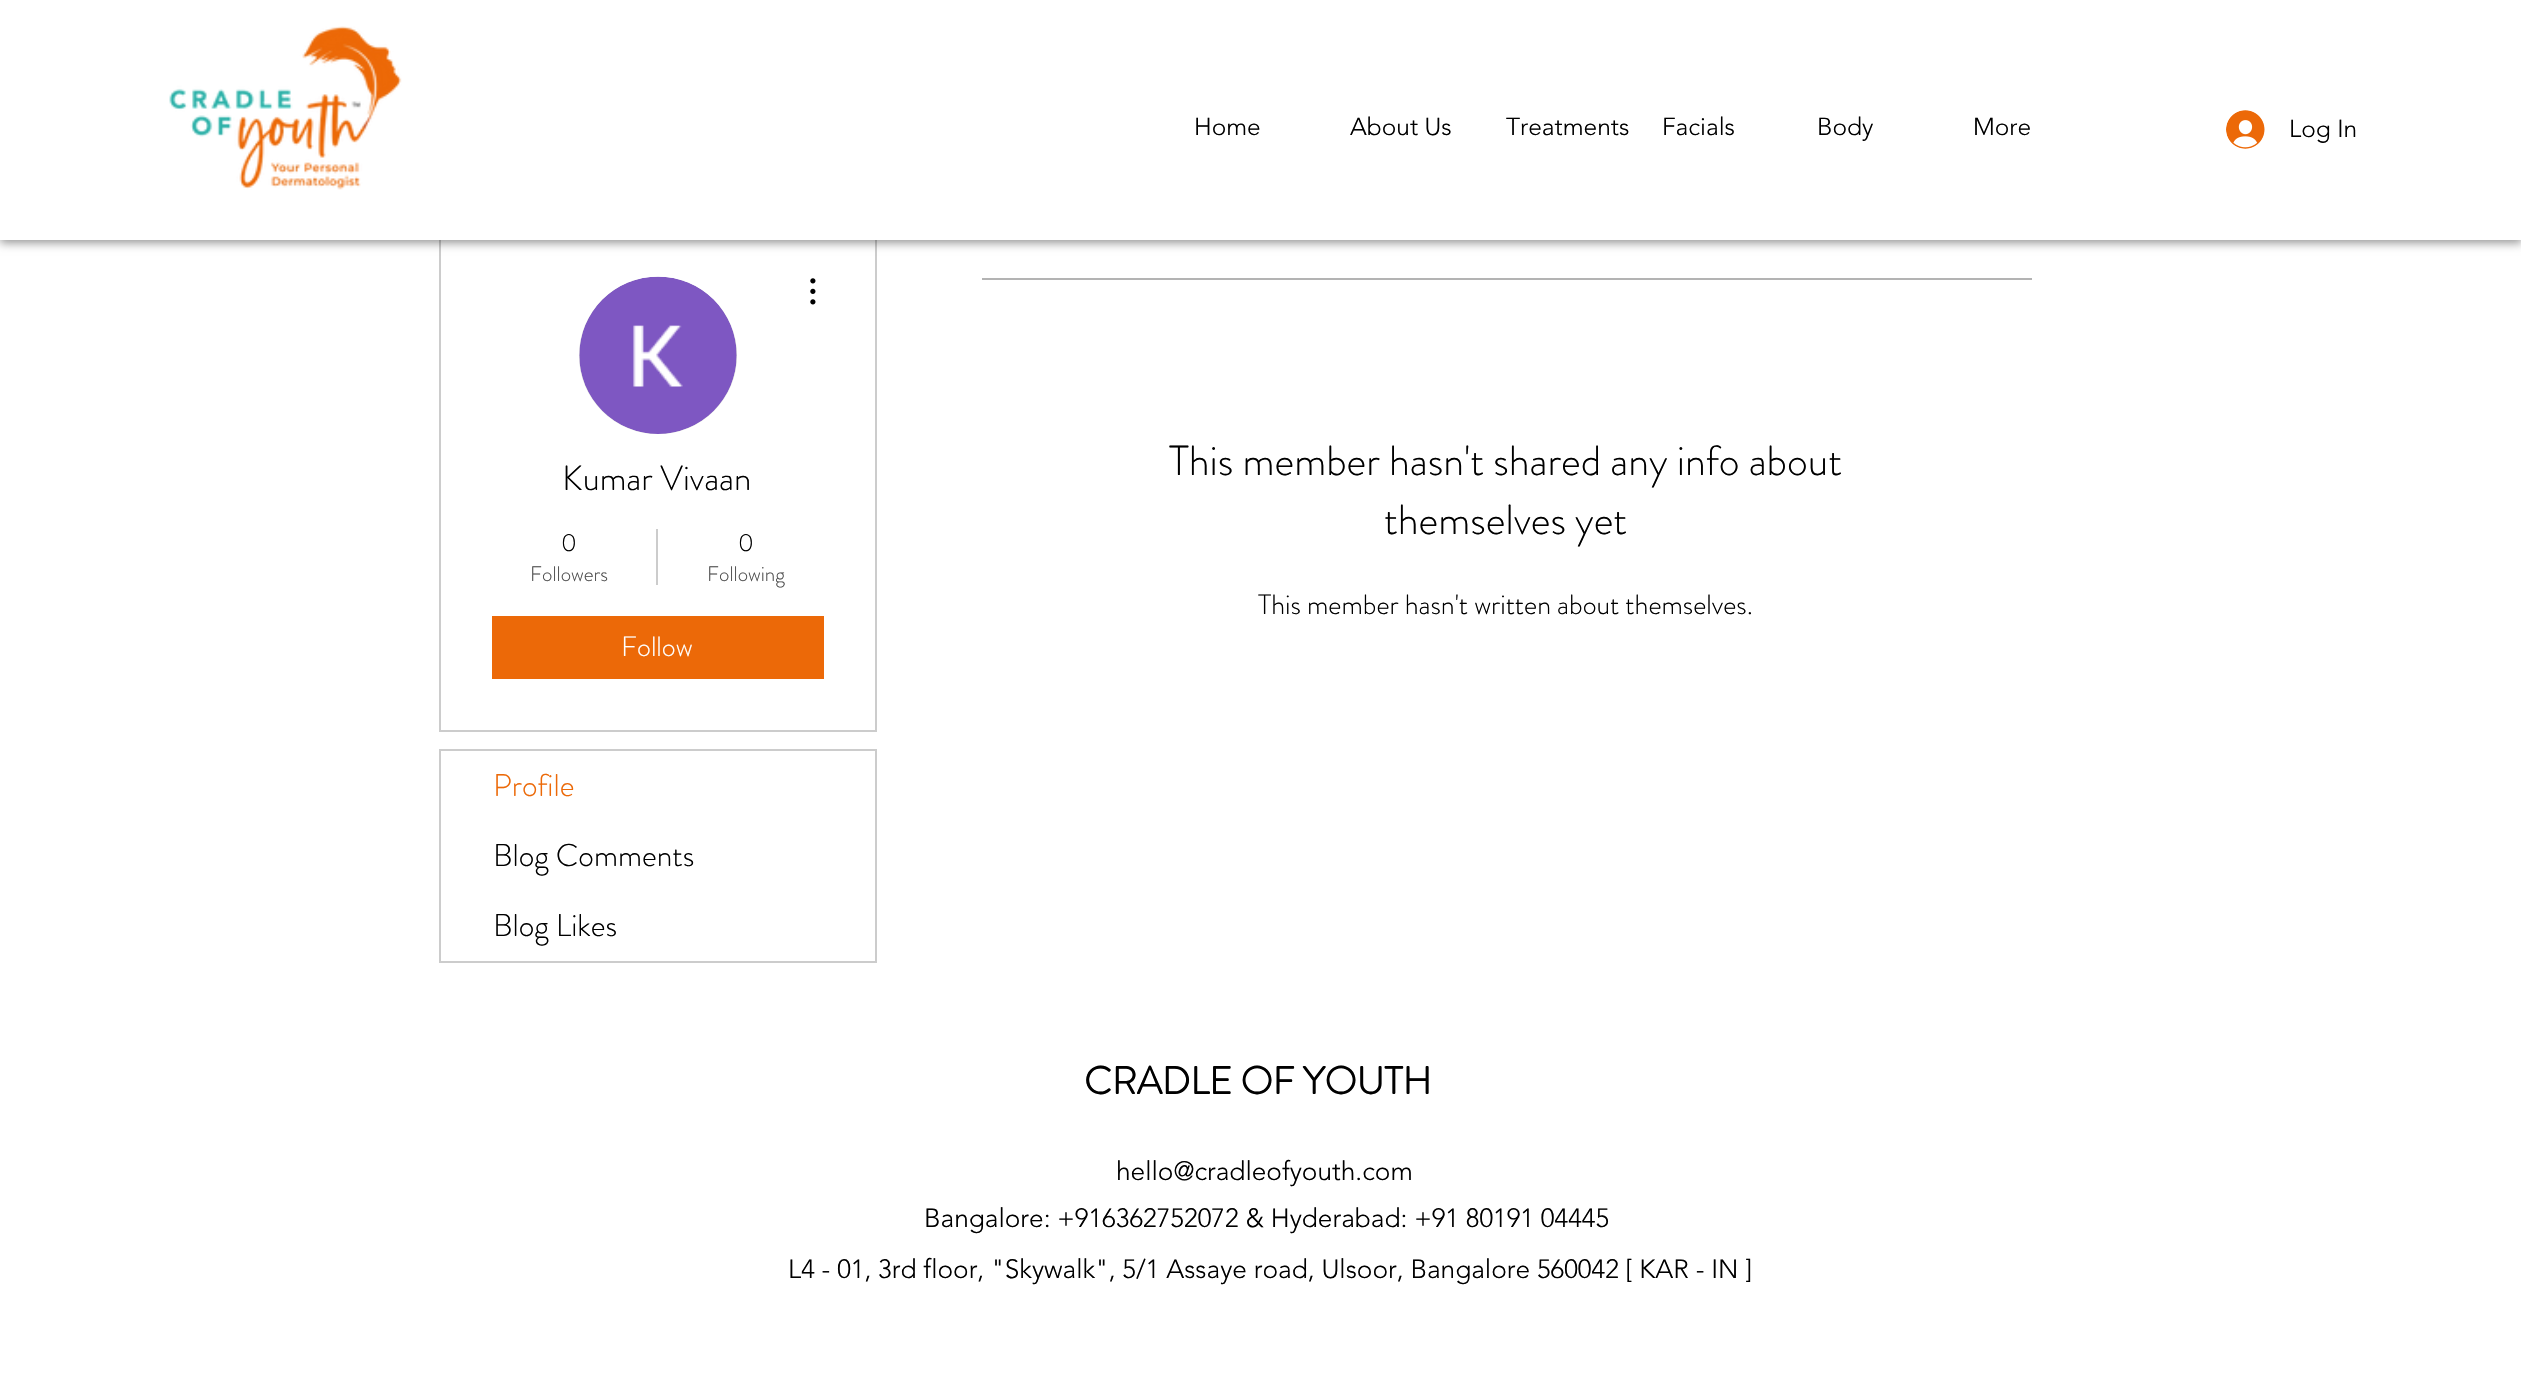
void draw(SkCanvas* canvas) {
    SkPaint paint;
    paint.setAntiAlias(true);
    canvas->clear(0xFFFFFFFF);
    paint.setStyle(SkPaint::kStroke_Style);
    paint.setStrokeWidth(2);
    paint.setColor(0xFFCCCCCC);
    canvas->drawRect(SkRect::MakeXYWH(440, 225, 436, 506), paint);
    paint.setStyle(SkPaint::kFill_Style);
    paint.setColor(0x69000000);
    paint.setMaskFilter(SkMaskFilter::MakeBlur(kNormal_SkBlurStyle, 4.5f));
    canvas->drawRect(SkRect::MakeXYWH(0, 4, 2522, 239), paint);
    paint.setMaskFilter(nullptr);
    paint.setColor(0xFFFFFFFF);
    canvas->drawRect(SkRect::MakeXYWH(0, 0, 2521, 240), paint);
    canvas->drawImageRect(SkImages::DeferredFromEncodedData(SkData::MakeFromFileName("img1.png")), SkRect::MakeXYWH(169, 26, 233, 164), SkSamplingOptions());
    SkFont font1(fontMgr->matchFamilyStyle("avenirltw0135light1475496", SkFontStyle(300, SkFontStyle::kNormal_Width, SkFontStyle::kUpright_Slant)), 24.5f);
    font1.setSubpixel(true);
    paint.setColor(0xFF000000);
    canvas->drawString("Home", 1194, 135, font1, paint);
    canvas->drawString("About Us", 1350, 135, font1, paint);
    canvas->drawString("Treatments", 1506, 135, font1, paint);
    canvas->drawString("Facials", 1662, 135, font1, paint);
    canvas->drawString("Body", 1817, 135, font1, paint);
    canvas->drawString("More", 1973, 135, font1, paint);
    canvas->drawImageRect(SkImages::DeferredFromEncodedData(SkData::MakeFromFileName("img2.png")), SkRect::MakeXYWH(2226, 110, 39, 39), SkSamplingOptions());
    canvas->drawString("Log In", 2289, 137, font1, paint);
    paint.setColor(0xFFD8D8D8);
    canvas->drawRoundRect(SkRect::MakeXYWH(579, 277, 158, 157), 78.5f, 78.5f, paint);
    canvas->drawImageRect(SkImages::DeferredFromEncodedData(SkData::MakeFromFileName("img3.png")), SkRect::MakeXYWH(579, 276, 158, 158), SkSamplingOptions());
    canvas->drawImageRect(SkImages::DeferredFromEncodedData(SkData::MakeFromFileName("img4.png")), SkRect::MakeXYWH(810, 278, 6, 27), SkSamplingOptions());
    SkFont font2(fontMgr->matchFamilyStyle("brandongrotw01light", SkFontStyle(300, SkFontStyle::kNormal_Width, SkFontStyle::kUpright_Slant)), 35);
    font2.setSubpixel(true);
    paint.setColor(0xFF000000);
    canvas->drawString("Kumar Vivaan", 562, 490, font2, paint);
    SkFont font3(fontMgr->matchFamilyStyle("brandongrotw01light", SkFontStyle(300, SkFontStyle::kNormal_Width, SkFontStyle::kUpright_Slant)), 24.5f);
    font3.setSubpixel(true);
    canvas->drawString("0", 561, 551, font3, paint);
    SkFont font4(fontMgr->matchFamilyStyle("brandongrotw01light", SkFontStyle(300, SkFontStyle::kNormal_Width, SkFontStyle::kUpright_Slant)), 21);
    font4.setSubpixel(true);
    paint.setColor(0xFF4D4D4D);
    canvas->drawString("Followers", 530, 581, font4, paint);
    paint.setColor(0xFFCCCCCC);
    canvas->drawRect(SkRect::MakeXYWH(656, 529, 2, 56), paint);
    paint.setColor(0xFF000000);
    canvas->drawString("0", 738, 551, font3, paint);
    paint.setColor(0xFF4D4D4D);
    canvas->drawString("Following", 707, 581, font4, paint);
    paint.setColor(0xFFEC6908);
    canvas->drawRect(SkRect::MakeXYWH(492, 616, 332, 63), paint);
    SkFont font5(fontMgr->matchFamilyStyle("brandongrotw01light", SkFontStyle(300, SkFontStyle::kNormal_Width, SkFontStyle::kUpright_Slant)), 28);
    font5.setSubpixel(true);
    paint.setColor(0xFFFFFFFF);
    canvas->drawString("Follow", 621, 656, font5, paint);
    paint.setStyle(SkPaint::kStroke_Style);
    paint.setColor(0xFFCCCCCC);
    canvas->drawRect(SkRect::MakeXYWH(440, 750, 436, 212), paint);
    SkFont font6(fontMgr->matchFamilyStyle("brandongrotw01light", SkFontStyle(300, SkFontStyle::kNormal_Width, SkFontStyle::kUpright_Slant)), 31.5f);
    font6.setSubpixel(true);
    paint.setStyle(SkPaint::kFill_Style);
    paint.setColor(0xFFEC6908);
    canvas->drawString("Profile", 493, 796, font6, paint);
    paint.setColor(0xFF000000);
    canvas->drawString("Blog Comments", 493, 866, font6, paint);
    canvas->drawString("Blog Likes", 493, 936, font6, paint);
    paint.setColor(0xFFB3B3B3);
    canvas->drawRect(SkRect::MakeXYWH(982, 278, 1050, 2), paint);
    SkFont font7(fontMgr->matchFamilyStyle("brandongrotw01light", SkFontStyle(300, SkFontStyle::kNormal_Width, SkFontStyle::kUpright_Slant)), 42);
    font7.setSubpixel(true);
    paint.setColor(0xFF000000);
    canvas->drawString("This member hasn't shared any info about", 1169, 475, font7, paint);
    canvas->drawString("themselves yet", 1384, 534, font7, paint);
    canvas->drawString("This member hasn't written about themselves.", 1258, 614, font5, paint);
    SkFont font8(fontMgr->matchFamilyStyle("brandongrotw01light", SkFontStyle::Bold()), 38.5f);
    font8.setSubpixel(true);
    canvas->drawString("CRADLE OF YOUTH", 1084, 1094, font8, paint);
    SkFont font9(fontMgr->matchFamilyStyle("avenirltw0135light1475496", SkFontStyle(300, SkFontStyle::kNormal_Width, SkFontStyle::kUpright_Slant)), 26.25f);
    font9.setSubpixel(true);
    canvas->drawString("hello@cradleofyouth.com", 1116, 1180, font9, paint);
    canvas->drawString("Bangalore: +916362752072 & Hyderabad: +91 80191 04445", 924, 1227, font9, paint);
    canvas->drawString("L4 - 01, 3rd floor, \"Skywalk\", 5/1 Assaye road, Ulsoor, Bangalore 560042 [ KAR - IN ]", 788, 1278, font9, paint);
}
